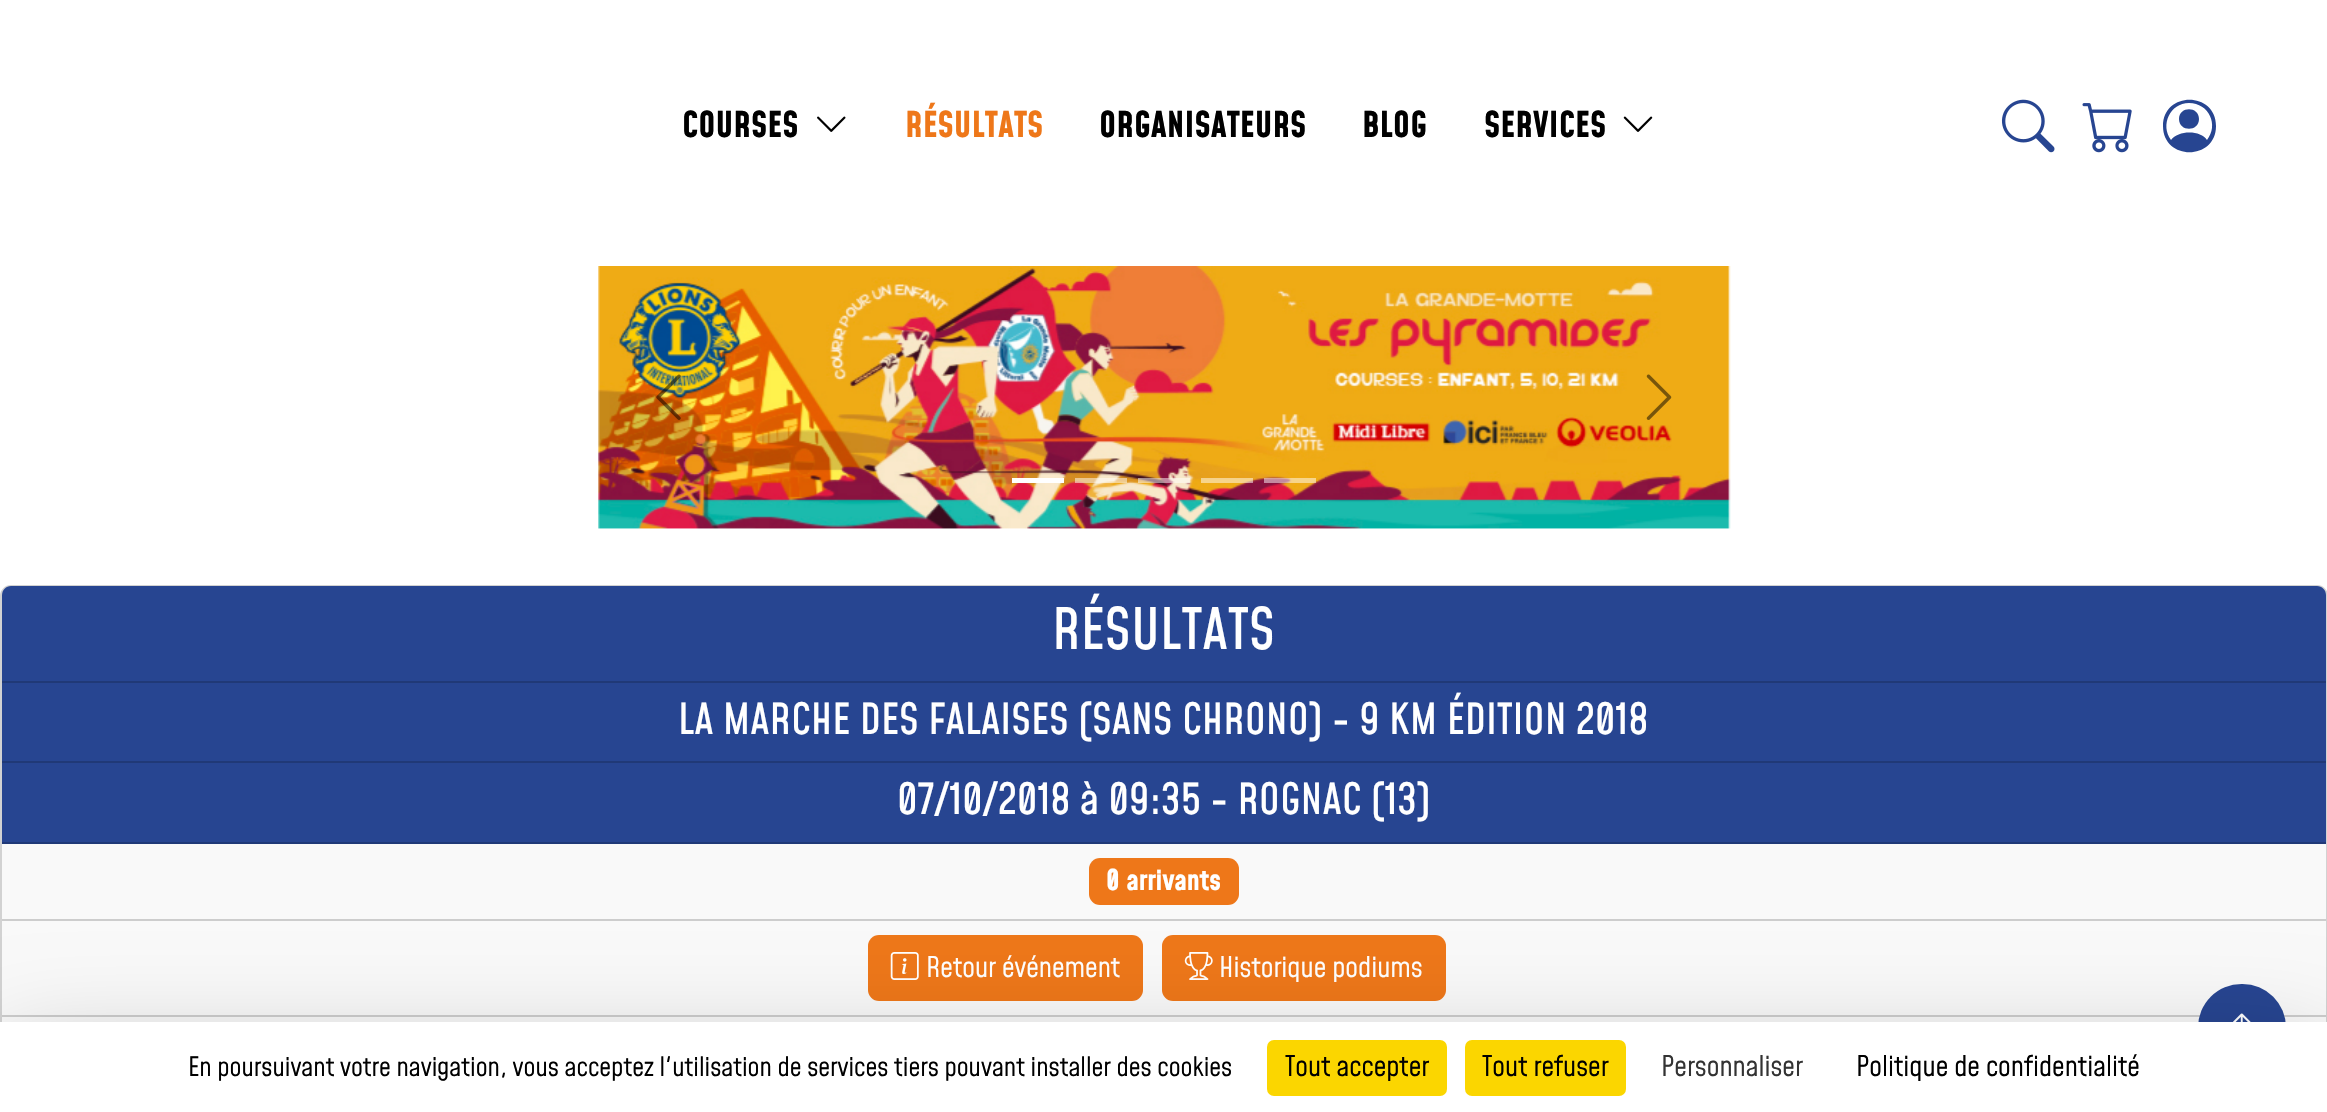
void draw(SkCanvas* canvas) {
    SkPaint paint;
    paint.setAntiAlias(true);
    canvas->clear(0xFFFFFFFF);
    SkFont font1(fontMgr->matchFamilyStyle("Mohave", SkFontStyle::Bold()), 35);
    font1.setSubpixel(true);
    paint.setColor(0xFF000000);
    canvas->drawString("COURSES", 682, 137, font1, paint);
    canvas->drawImageRect(SkImages::DeferredFromEncodedData(SkData::MakeFromFileName("img1.png")), SkRect::MakeXYWH(817, 116, 29, 16), SkSamplingOptions());
    paint.setColor(0xFFEE7719);
    canvas->drawString("RÉSULTATS", 905, 137, font1, paint);
    paint.setColor(0xFF000000);
    canvas->drawString("ORGANISATEURS", 1099, 137, font1, paint);
    canvas->drawString("BLOG", 1362, 137, font1, paint);
    canvas->drawString("SERVICES", 1484, 137, font1, paint);
    canvas->drawImageRect(SkImages::DeferredFromEncodedData(SkData::MakeFromFileName("img2.png")), SkRect::MakeXYWH(1623, 116, 30, 16), SkSamplingOptions());
    canvas->drawImageRect(SkImages::DeferredFromEncodedData(SkData::MakeFromFileName("img3.png")), SkRect::MakeXYWH(2001, 99, 54, 54), SkSamplingOptions());
    canvas->drawImageRect(SkImages::DeferredFromEncodedData(SkData::MakeFromFileName("img4.png")), SkRect::MakeXYWH(2082, 103, 50, 50), SkSamplingOptions());
    paint.setColor(0xFF274591);
    canvas->drawPath(SkPathBuilder().moveTo(2199, 119).cubicTo(2199, 132, 2179, 132, 2179, 119).cubicTo(2179, 106, 2199, 106, 2199, 119).close().moveTo(2163, 126).cubicTo(2163, 91, 2216, 91, 2216, 126).cubicTo(2216, 161, 2163, 161, 2163, 126).close().moveTo(2189, 103).cubicTo(2170, 103, 2160, 125, 2171, 140).cubicTo(2178, 130, 2201, 130, 2207, 140).cubicTo(2219, 125, 2209, 103, 2189, 103).close().detach(), paint);
    canvas->drawImageRect(SkImages::DeferredFromEncodedData(SkData::MakeFromFileName("img5.png")), SkRect::MakeXYWH(598, 266, 1133, 263), SkSamplingOptions());
    canvas->drawImageRect(SkImages::DeferredFromEncodedData(SkData::MakeFromFileName("img6.png")), SkRect::MakeXYWH(656, 374, 25, 46), SkSamplingOptions());
    canvas->drawImageRect(SkImages::DeferredFromEncodedData(SkData::MakeFromFileName("img7.png")), SkRect::MakeXYWH(1646, 374, 26, 46), SkSamplingOptions());
    paint.setColor(0xFFFFFFFF);
    canvas->drawRect(SkRect::MakeXYWH(1012, 478, 52, 5), paint);
    paint.setColor(0x80FFFFFF);
    canvas->drawRect(SkRect::MakeXYWH(1075, 478, 52, 5), paint);
    canvas->drawRect(SkRect::MakeXYWH(1138, 478, 52, 5), paint);
    canvas->drawRect(SkRect::MakeXYWH(1201, 478, 52, 5), paint);
    canvas->drawRect(SkRect::MakeXYWH(1264, 478, 52, 5), paint);
    paint.setStyle(SkPaint::kStroke_Style);
    paint.setStrokeWidth(2);
    paint.setColor(0xFFD2D2D2);
    canvas->drawRoundRect(SkRect::MakeXYWH(1, 586, 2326, 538), 10, 10, paint);
    paint.setStyle(SkPaint::kFill_Style);
    paint.setColor(0xFF274591);
    canvas->drawPath(SkPathBuilder().moveTo(11, 586).lineTo(2317, 586).cubicTo(2322, 586, 2326, 590, 2326, 595).lineTo(2326, 683).lineTo(2, 683).lineTo(2, 595).cubicTo(2, 590, 6, 586, 11, 586).close().detach(), paint);
    paint.setColor(0xFF203977);
    canvas->drawRect(SkRect::MakeXYWH(2, 681, 2324, 2), paint);
    SkFont font2(fontMgr->matchFamilyStyle("Mohave", SkFontStyle(500, SkFontStyle::kNormal_Width, SkFontStyle::kUpright_Slant)), 56);
    font2.setSubpixel(true);
    paint.setColor(0xFFFFFFFF);
    canvas->drawString("RÉSULTATS", 1052, 649, font2, paint);
    paint.setColor(0xFF274591);
    canvas->drawRect(SkRect::MakeXYWH(2, 683, 2324, 78), paint);
    paint.setColor(0xFF203977);
    canvas->drawRect(SkRect::MakeXYWH(2, 761, 2324, 2), paint);
    SkFont font3(fontMgr->matchFamilyStyle("Mohave", SkFontStyle(500, SkFontStyle::kNormal_Width, SkFontStyle::kUpright_Slant)), 42);
    font3.setSubpixel(true);
    paint.setColor(0xFFFFFFFF);
    canvas->drawString("LA MARCHE DES FALAISES (SANS CHRONO) - 9 KM ÉDITION 2018", 678, 734, font3, paint);
    paint.setColor(0xFF274591);
    canvas->drawRect(SkRect::MakeXYWH(2, 763, 2324, 79), paint);
    paint.setColor(0xFF203977);
    canvas->drawRect(SkRect::MakeXYWH(2, 842, 2324, 2), paint);
    paint.setColor(0xFFFFFFFF);
    canvas->drawString("07/10/2018 à 09:35 - ROGNAC (13)", 897, 814, font3, paint);
    paint.setColor(0xFFF9F9F9);
    canvas->drawRect(SkRect::MakeXYWH(2, 844, 2324, 75), paint);
    paint.setColor(0xFFCDCDCD);
    canvas->drawRect(SkRect::MakeXYWH(2, 919, 2324, 2), paint);
    paint.setColor(0xFFEE7719);
    canvas->drawRoundRect(SkRect::MakeXYWH(1089, 858, 150, 47), 11, 11, paint);
    SkFont font4(fontMgr->matchFamilyStyle("Mohave", SkFontStyle::Bold()), 28);
    font4.setSubpixel(true);
    paint.setColor(0xFFFFFFFF);
    canvas->drawString("0 arrivants", 1106, 890, font4, paint);
    paint.setColor(0xFFF9F9F9);
    canvas->drawRect(SkRect::MakeXYWH(2, 921, 2324, 94), paint);
    paint.setColor(0xFFCDCDCD);
    canvas->drawRect(SkRect::MakeXYWH(2, 1015, 2324, 2), paint);
    paint.setColor(0xFFEE7719);
    canvas->drawRoundRect(SkRect::MakeXYWH(868, 935, 275, 66), 11, 11, paint);
    canvas->drawImageRect(SkImages::DeferredFromEncodedData(SkData::MakeFromFileName("img8.png")), SkRect::MakeXYWH(890, 952, 29, 28), SkSamplingOptions());
    SkFont font5(fontMgr->matchFamilyStyle("Mohave", SkFontStyle::Normal()), 28);
    font5.setSubpixel(true);
    paint.setColor(0xFFFFFFFF);
    canvas->drawString("Retour événement", 926, 977, font5, paint);
    paint.setColor(0xFFEE7719);
    canvas->drawRoundRect(SkRect::MakeXYWH(1162, 935, 284, 66), 11, 11, paint);
    canvas->drawImageRect(SkImages::DeferredFromEncodedData(SkData::MakeFromFileName("img9.png")), SkRect::MakeXYWH(1184, 952, 29, 28), SkSamplingOptions());
    paint.setColor(0xFFFFFFFF);
    canvas->drawString("Historique podiums", 1219, 977, font5, paint);
    paint.setColor(0xFFF9F9F9);
    canvas->drawRect(SkRect::MakeXYWH(2, 1017, 2324, 5), paint);
    paint.setColor(0xFF274591);
    canvas->drawRoundRect(SkRect::MakeXYWH(2198, 984, 88, 87), 43.5f, 43.5f, paint);
    canvas->drawImageRect(SkImages::DeferredFromEncodedData(SkData::MakeFromFileName("img10.png")), SkRect::MakeXYWH(2233, 1013, 18, 9), SkSamplingOptions());
    paint.setColor(0x40000000);
    paint.setMaskFilter(SkMaskFilter::MakeBlur(kNormal_SkBlurStyle, 52.5f));
    canvas->drawRect(SkRect::MakeXYWH(0, 1057, 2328, 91), paint);
    paint.setMaskFilter(nullptr);
    paint.setColor(0xFFFFFFFF);
    canvas->drawRect(SkRect::MakeXYWH(0, 1022, 2327, 90), paint);
    SkFont font6(fontMgr->matchFamilyStyle("Mohave", SkFontStyle::Normal()), 26.25f);
    font6.setSubpixel(true);
    paint.setColor(0xFF000000);
    canvas->drawString("En poursuivant votre navigation, vous acceptez l'utilisation de services tiers pouvant installer des cookies", 188, 1076, font6, paint);
    paint.setColor(0xFFFBD600);
    canvas->drawRoundRect(SkRect::MakeXYWH(1267, 1040, 180, 56), 7, 7, paint);
    paint.setColor(0xFF000000);
    canvas->drawString("Tout accepter", 1285, 1076, font5, paint);
    paint.setColor(0xFFFBD600);
    canvas->drawRoundRect(SkRect::MakeXYWH(1465, 1040, 161, 56), 7, 7, paint);
    paint.setColor(0xFF000000);
    canvas->drawString("Tout refuser", 1482, 1076, font5, paint);
    paint.setColor(0xFF333333);
    canvas->drawString("Personnaliser", 1661, 1076, font5, paint);
    paint.setColor(0xFF000000);
    canvas->drawString("Politique de confidentialité", 1856, 1076, font5, paint);
}
